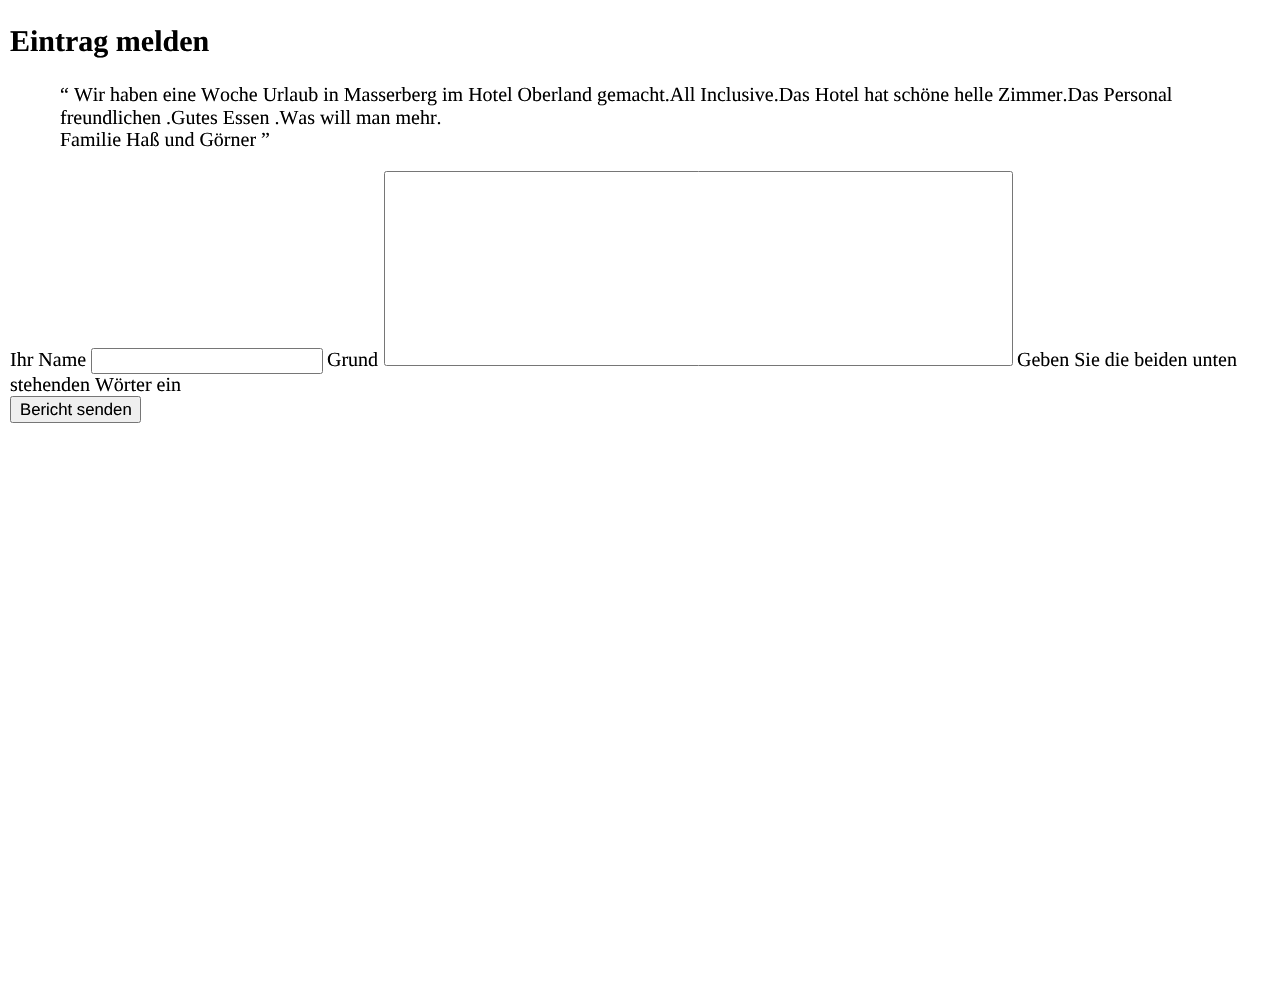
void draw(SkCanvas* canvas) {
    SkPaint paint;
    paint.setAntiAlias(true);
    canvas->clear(0xFFFFFFFF);
    SkFont font1(fontMgr->matchFamilyStyle("Liberation Serif", SkFontStyle::Bold()), 30);
    font1.setSubpixel(true);
    paint.setColor(0xFF000000);
    canvas->drawString("Eintrag melden", 10, 51, font1, paint);
    SkFont font2(fontMgr->matchFamilyStyle("Liberation Serif", SkFontStyle::Normal()), 20);
    font2.setSubpixel(true);
    canvas->drawString("“ Wir haben eine Woche Urlaub in Masserberg im Hotel Oberland gemacht.All Inclusive.Das Hotel hat schöne helle Zimmer.Das Personal", 60, 101, font2, paint);
    canvas->drawString("freundlichen .Gutes Essen .Was will man mehr.", 60, 124, font2, paint);
    canvas->drawString("Familie Haß und Görner ”", 60, 146, font2, paint);
    canvas->drawString("Ihr Name", 10, 366, font2, paint);
    paint.setStyle(SkPaint::kStroke_Style);
    paint.setStrokeWidth(1);
    paint.setColor(0xFF767676);
    canvas->drawRoundRect(SkRect::MakeXYWH(91.5f, 348.5f, 231, 25), 2, 2, paint);
    paint.setStyle(SkPaint::kFill_Style);
    paint.setColor(0xFF000000);
    canvas->drawString("Grund", 327, 366, font2, paint);
    paint.setStyle(SkPaint::kStroke_Style);
    paint.setColor(0xFF767676);
    canvas->drawRoundRect(SkRect::MakeXYWH(384.5f, 171.5f, 628, 194), 2, 2, paint);
    paint.setStyle(SkPaint::kFill_Style);
    paint.setColor(0xFF000000);
    canvas->drawString("Geben Sie die beiden unten", 1017, 366, font2, paint);
    canvas->drawString("stehenden Wörter ein", 10, 391, font2, paint);
    paint.setColor(0xFFEFEFEF);
    canvas->drawRoundRect(SkRect::MakeXYWH(10.5f, 396.5f, 130, 26), 2, 2, paint);
    paint.setStyle(SkPaint::kStroke_Style);
    paint.setColor(0xFF767676);
    canvas->drawRoundRect(SkRect::MakeXYWH(10.5f, 396.5f, 130, 26), 2, 2, paint);
    SkFont font3(fontMgr->matchFamilyStyle("Liberation Sans", SkFontStyle::Normal()), 16.75f);
    font3.setSubpixel(true);
    paint.setStyle(SkPaint::kFill_Style);
    paint.setColor(0xFF000000);
    canvas->drawString("Bericht senden", 20, 415, font3, paint);
}
